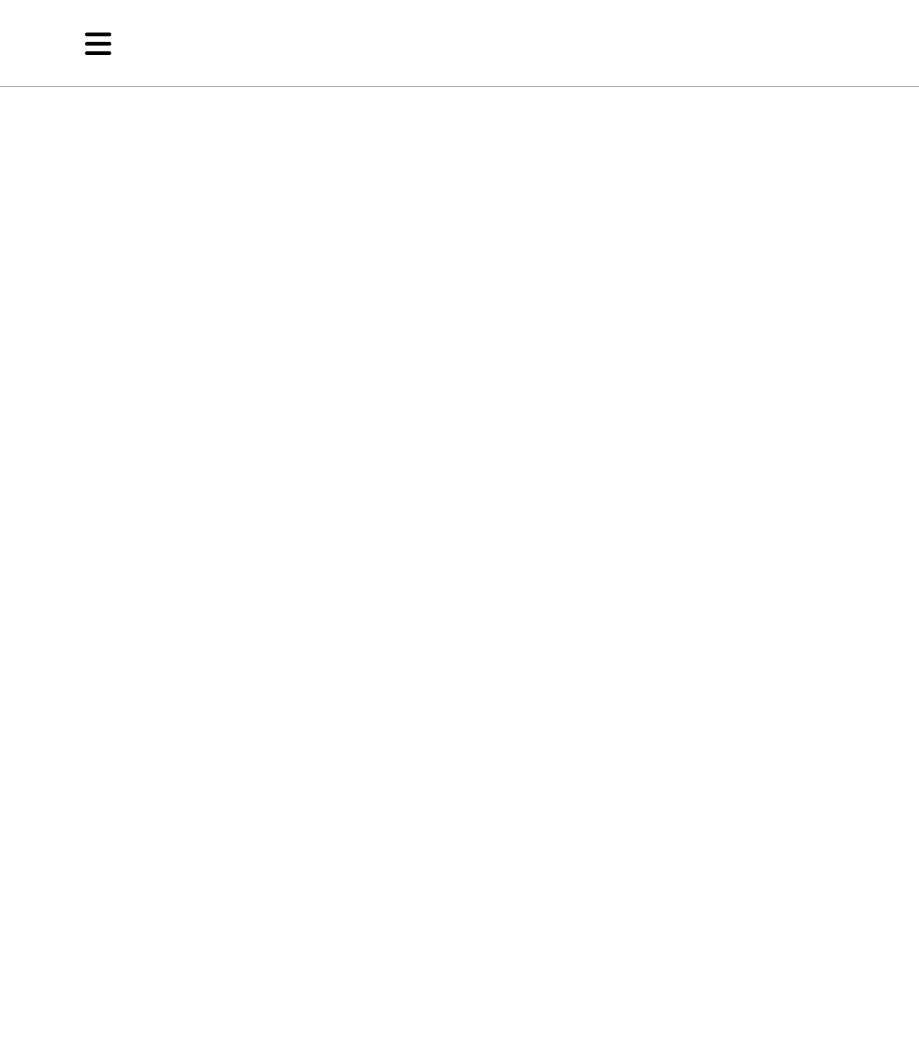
void draw(SkCanvas* canvas) {
    SkPaint paint;
    paint.setAntiAlias(true);
    canvas->clear(0xFFFFFFFF);
    paint.setColor(0xFFAFAAA9);
    canvas->drawRect(SkRect::MakeXYWH(0, 86, 919, 1), paint);
    canvas->drawImageRect(SkImages::DeferredFromEncodedData(SkData::MakeFromFileName("img1.png")), SkRect::MakeXYWH(85, 32, 27, 23), SkSamplingOptions());
}
